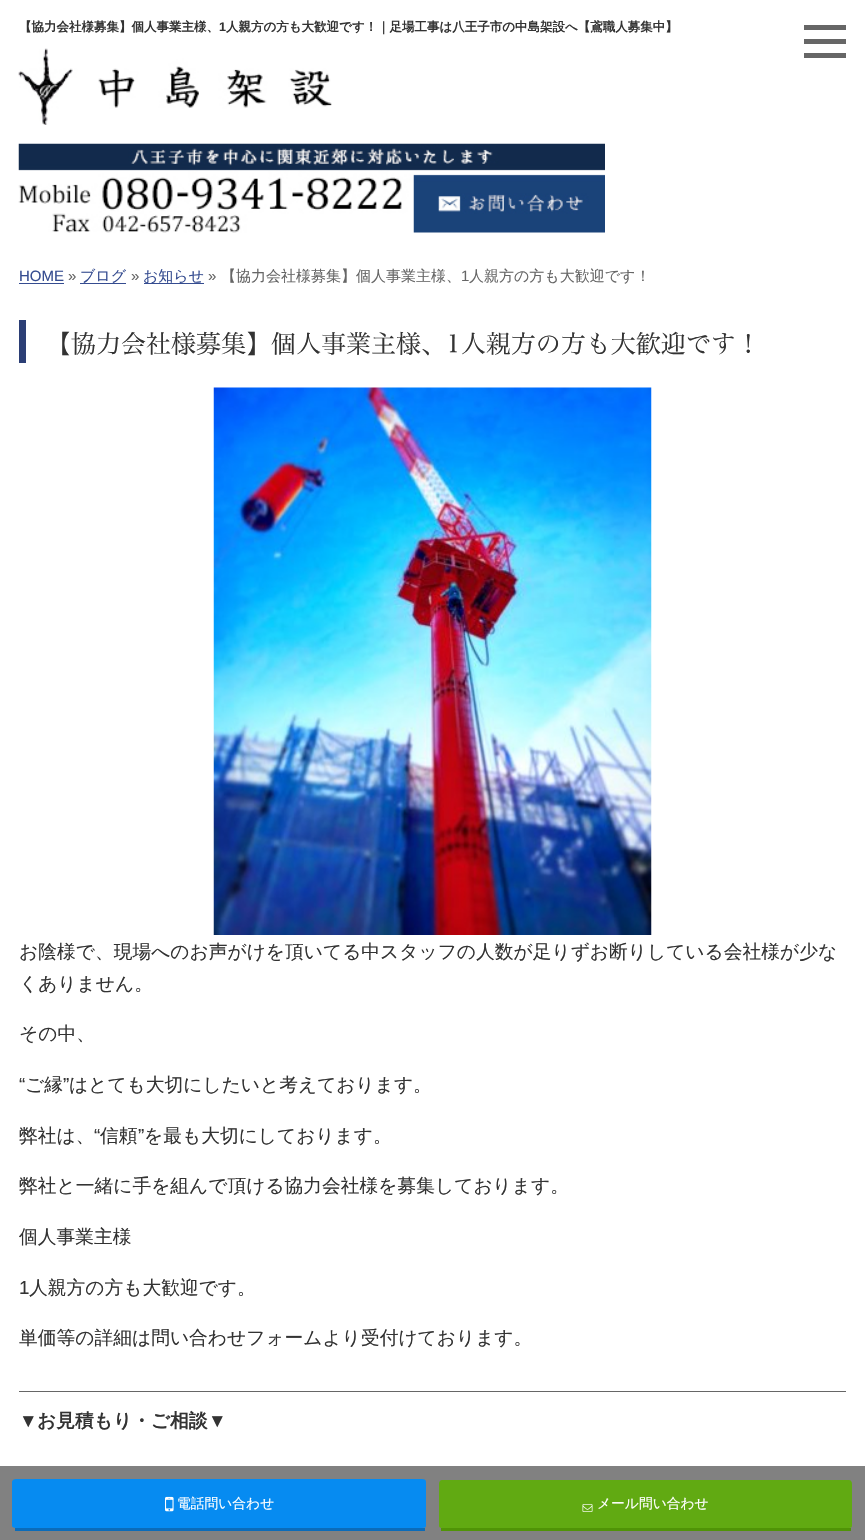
void draw(SkCanvas* canvas) {
    SkPaint paint;
    paint.setAntiAlias(true);
    canvas->clear(0xFFFFFFFF);
    SkFont font1(fontMgr->matchFamilyStyle("WenQuanYi Zen Hei", SkFontStyle::Bold()), 12.5f);
    font1.setSubpixel(true);
    paint.setColor(0xFF333333);
    canvas->drawString("【協力会社様募集】個人事業主様、", 19, 31, font1, paint);
    SkFont font2(fontMgr->matchFamilyStyle("Liberation Sans", SkFontStyle::Bold()), 12.5f);
    font2.setSubpixel(true);
    canvas->drawString("1", 219, 31, font2, paint);
    canvas->drawString("人親方の方も大歓迎です！｜足場工事は八王子市の中島架設へ【鳶職人募集中】", 226, 31, font1, paint);
    paint.setColor(0xFF666666);
    canvas->drawRect(SkRect::MakeXYWH(804, 25, 42, 5), paint);
    canvas->drawRect(SkRect::MakeXYWH(804, 39, 42, 5), paint);
    canvas->drawRect(SkRect::MakeXYWH(804, 53, 42, 5), paint);
    canvas->drawImageRect(SkImages::DeferredFromEncodedData(SkData::MakeFromFileName("img1.png")), SkRect::MakeXYWH(18, 48, 314, 77), SkSamplingOptions());
    canvas->drawImageRect(SkImages::DeferredFromEncodedData(SkData::MakeFromFileName("img2.png")), SkRect::MakeXYWH(18, 143, 587, 90), SkSamplingOptions());
    SkFont font3(fontMgr->matchFamilyStyle("Liberation Sans", SkFontStyle::Normal()), 15);
    font3.setSubpixel(true);
    paint.setColor(0xFF354C90);
    canvas->drawString("HOME", 19, 281, font3, paint);
    canvas->drawRect(SkRect::MakeXYWH(19, 283, 45, 1), paint);
    paint.setColor(0xFF666666);
    canvas->drawString("»", 68, 281, font3, paint);
    SkFont font4(fontMgr->matchFamilyStyle("WenQuanYi Zen Hei", SkFontStyle(500, SkFontStyle::kNormal_Width, SkFontStyle::kUpright_Slant)), 15);
    font4.setSubpixel(true);
    paint.setColor(0xFF354C90);
    canvas->drawString("ブログ", 80, 281, font4, paint);
    canvas->drawRect(SkRect::MakeXYWH(80, 283, 46, 1), paint);
    paint.setColor(0xFF666666);
    canvas->drawString("»", 131, 281, font3, paint);
    paint.setColor(0xFF354C90);
    canvas->drawRect(SkRect::MakeXYWH(144, 283, 60, 1), paint);
    canvas->drawString("お知らせ", 143, 281, font4, paint);
    paint.setColor(0xFF666666);
    canvas->drawString("»", 208, 281, font3, paint);
    canvas->drawString("【協力会社様募集】個人事業主様、", 221, 281, font4, paint);
    canvas->drawString("1", 461, 281, font3, paint);
    canvas->drawString("人親方の方も大歓迎です！", 469, 281, font4, paint);
    paint.setColor(0xFF2B3E75);
    canvas->drawRect(SkRect::MakeXYWH(19, 320, 7, 43), paint);
    SkFont font5(fontMgr->matchFamilyStyle("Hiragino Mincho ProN", SkFontStyle(300, SkFontStyle::kNormal_Width, SkFontStyle::kUpright_Slant)), 25);
    font5.setSubpixel(true);
    paint.setColor(0xFF333333);
    canvas->drawString("【協力会社様募集】個人事業主様、1人親方の方も大歓迎です！", 46, 353, font5, paint);
    canvas->drawImageRect(SkImages::DeferredFromEncodedData(SkData::MakeFromFileName("img3.png")), SkRect::MakeXYWH(213, 387, 439, 548), SkSamplingOptions());
    SkFont font6(fontMgr->matchFamilyStyle("WenQuanYi Zen Hei", SkFontStyle(500, SkFontStyle::kNormal_Width, SkFontStyle::kUpright_Slant)), 18.75f);
    font6.setSubpixel(true);
    canvas->drawString("お陰様で、現場へのお声がけを頂いてる中スタッフの人数が足りずお断りしている会社様が少な", 19, 958, font6, paint);
    canvas->drawString("くありません。", 19, 990, font6, paint);
    canvas->drawString("その中、", 19, 1040, font6, paint);
    SkFont font7(fontMgr->matchFamilyStyle("Liberation Sans", SkFontStyle::Normal()), 18.75f);
    font7.setSubpixel(true);
    canvas->drawString("“", 19, 1091, font7, paint);
    canvas->drawString("ご縁", 25, 1091, font6, paint);
    canvas->drawString("”", 63, 1091, font7, paint);
    canvas->drawString("はとても大切にしたいと考えております。", 69, 1091, font6, paint);
    canvas->drawString("弊社は、", 19, 1142, font6, paint);
    canvas->drawString("“", 94, 1142, font7, paint);
    canvas->drawString("信頼", 100, 1142, font6, paint);
    canvas->drawString("”", 138, 1142, font7, paint);
    canvas->drawString("を最も大切にしております。", 144, 1142, font6, paint);
    canvas->drawString("弊社と一緒に手を組んで頂ける協力会社様を募集しております。", 19, 1192, font6, paint);
    canvas->drawString("個人事業主様", 19, 1243, font6, paint);
    canvas->drawString("1", 19, 1294, font7, paint);
    canvas->drawString("人親方の方も大歓迎です。", 29, 1294, font6, paint);
    canvas->drawString("単価等の詳細は問い合わせフォームより受付けております。", 19, 1344, font6, paint);
    paint.setColor(0xFF666666);
    canvas->drawRect(SkRect::MakeXYWH(19, 1391, 827, 1), paint);
    SkFont font8(fontMgr->matchFamilyStyle("Liberation Sans", SkFontStyle::Bold()), 18.75f);
    font8.setSubpixel(true);
    paint.setColor(0xFF333333);
    canvas->drawString("▼", 19, 1427, font8, paint);
    SkFont font9(fontMgr->matchFamilyStyle("WenQuanYi Zen Hei", SkFontStyle::Bold()), 18.75f);
    font9.setSubpixel(true);
    canvas->drawString("お見積もり・ご相談", 37, 1427, font9, paint);
    canvas->drawString("▼", 208, 1427, font8, paint);
    paint.setColor(0xB34C4C4C);
    canvas->drawRect(SkRect::MakeXYWH(0, 1466, 865, 74), paint);
    paint.setColor(0xFF068BF1);
    canvas->drawPath(SkPathBuilder().moveTo(16, 1479).lineTo(422, 1479).cubicTo(425, 1479, 426, 1480, 426, 1482).lineTo(426, 1526).cubicTo(426, 1527, 425, 1528, 422, 1528).lineTo(16, 1528).cubicTo(14, 1528, 12, 1527, 12, 1526).lineTo(12, 1482).cubicTo(12, 1480, 14, 1479, 16, 1479).close().detach(), paint);
    paint.setColor(0xFF0B6CBA);
    canvas->drawRect(SkRect::MakeXYWH(15, 1528, 410, 3), paint);
    canvas->drawImageRect(SkImages::DeferredFromEncodedData(SkData::MakeFromFileName("img4.png")), SkRect::MakeXYWH(165, 1496, 9, 16), SkSamplingOptions());
    SkFont font10(fontMgr->matchFamilyStyle("WenQuanYi Zen Hei", SkFontStyle(500, SkFontStyle::kNormal_Width, SkFontStyle::kUpright_Slant)), 13.75f);
    font10.setSubpixel(true);
    paint.setColor(0xFFFFFFFF);
    canvas->drawString("電話問い合わせ", 177, 1508, font10, paint);
    paint.setColor(0xFF61AA12);
    canvas->drawPath(SkPathBuilder().moveTo(442, 1480).lineTo(849, 1480).cubicTo(851, 1480, 852, 1482, 852, 1484).lineTo(852, 1526).cubicTo(852, 1527, 851, 1528, 849, 1528).lineTo(442, 1528).cubicTo(440, 1528, 439, 1527, 439, 1526).lineTo(439, 1484).cubicTo(439, 1482, 440, 1480, 442, 1480).close().detach(), paint);
    paint.setColor(0xFF509407);
    canvas->drawRect(SkRect::MakeXYWH(441, 1528, 410, 3), paint);
    canvas->drawImageRect(SkImages::DeferredFromEncodedData(SkData::MakeFromFileName("img5.png")), SkRect::MakeXYWH(582, 1504, 11, 8), SkSamplingOptions());
    paint.setColor(0xFFFFFFFF);
    canvas->drawString("メール問い合わせ", 597, 1508, font10, paint);
}
